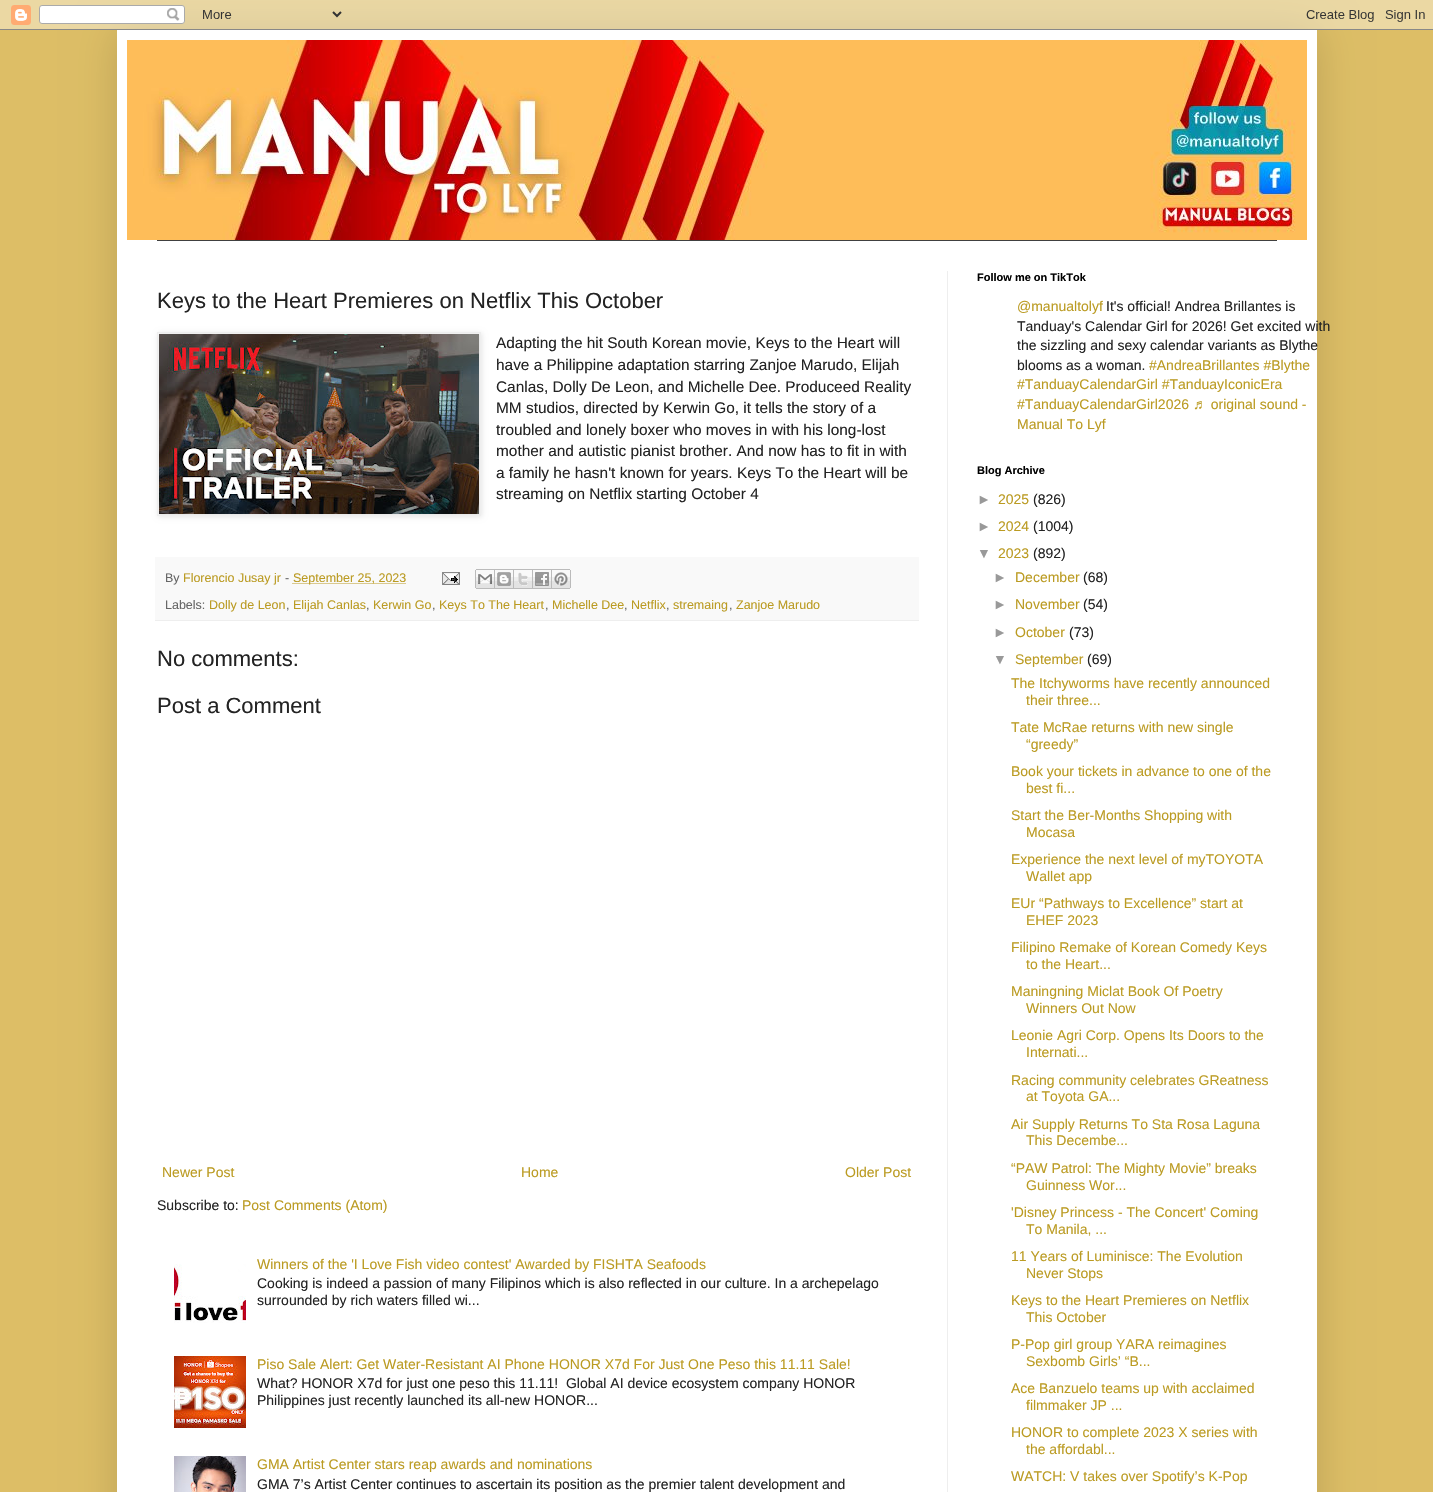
void draw(SkCanvas* canvas) {
    SkPaint paint;
    paint.setAntiAlias(true);
    canvas->clear(0xFFDDBE66);
    paint.setColor(0x26000000);
    paint.setMaskFilter(SkMaskFilter::MakeBlur(kNormal_SkBlurStyle, 20));
    canvas->drawRect(SkRect::MakeXYWH(117, 30, 1200, 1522), paint);
    paint.setMaskFilter(nullptr);
    canvas->drawImageRect(SkImages::DeferredFromEncodedData(SkData::MakeFromFileName("img1.png")), SkRect::MakeXYWH(0, 0, 1433, 30), SkSamplingOptions());
    paint.setColor(0xFFFFFFFF);
    canvas->drawRect(SkRect::MakeXYWH(117, 30, 1200, 1462), paint);
    canvas->drawImageRect(SkImages::DeferredFromEncodedData(SkData::MakeFromFileName("img2.png")), SkRect::MakeXYWH(127, 40, 1180, 200), SkSamplingOptions());
    paint.setColor(0xFF404040);
    canvas->drawRect(SkRect::MakeXYWH(157, 240, 1120, 1), paint);
    paint.setColor(0xFFEEEEEE);
    canvas->drawRect(SkRect::MakeXYWH(947, 271, 1, 1221), paint);
    SkFont font1(fontMgr->matchFamilyStyle("Liberation Sans", SkFontStyle::Normal()), 22);
    font1.setSubpixel(true);
    paint.setColor(0xFF232323);
    canvas->drawString("Keys to the Heart Premieres on Netflix This October", 157, 308, font1, paint);
    paint.setColor(0x1A000000);
    paint.setMaskFilter(SkMaskFilter::MakeBlur(kNormal_SkBlurStyle, 2.5f));
    canvas->drawRect(SkRect::MakeXYWH(158, 333, 324, 184), paint);
    paint.setMaskFilter(nullptr);
    paint.setStyle(SkPaint::kStroke_Style);
    paint.setStrokeWidth(1);
    paint.setColor(0xFFEEEEEE);
    canvas->drawRect(SkRect::MakeXYWH(157.5f, 332.5f, 323, 183), paint);
    canvas->drawImageRect(SkImages::DeferredFromEncodedData(SkData::MakeFromFileName("img3.png")), SkRect::MakeXYWH(159, 334, 320, 180), SkSamplingOptions());
    SkFont font2(fontMgr->matchFamilyStyle("Liberation Sans", SkFontStyle::Normal()), 15.4f);
    font2.setSubpixel(true);
    paint.setStyle(SkPaint::kFill_Style);
    paint.setColor(0xFF232323);
    canvas->drawString("Adapting the hit South Korean movie, Keys to the Heart will", 496, 348, font2, paint);
    canvas->drawString("have a Philippine adaptation starring Zanjoe Marudo, Elijah", 496, 370, font2, paint);
    canvas->drawString("Canlas, Dolly De Leon, and Michelle Dee. Produceed Reality", 496, 392, font2, paint);
    canvas->drawString("MM studios, directed by Kerwin Go, it tells the story of a", 496, 413, font2, paint);
    canvas->drawString("troubled and lonely boxer who moves in with his long-lost", 496, 435, font2, paint);
    canvas->drawString("mother and autistic pianist brother. And now has to fit in with", 496, 456, font2, paint);
    canvas->drawString("a family he hasn't known for years. Keys To the Heart will be", 496, 478, font2, paint);
    canvas->drawString("streaming on Netflix starting October 4", 496, 499, font2, paint);
    paint.setColor(0xFFF9F9F9);
    canvas->drawRect(SkRect::MakeXYWH(155, 557, 764, 63), paint);
    paint.setColor(0xFFEEEEEE);
    canvas->drawRect(SkRect::MakeXYWH(155, 620, 764, 1), paint);
    SkFont font3(fontMgr->matchFamilyStyle("Liberation Sans", SkFontStyle::Normal()), 12.5f);
    font3.setSubpixel(true);
    paint.setColor(0xFF666666);
    canvas->drawString("By", 165, 582, font3, paint);
    paint.setColor(0xFFBB9B22);
    canvas->drawString("Florencio Jusay jr", 183, 582, font3, paint);
    paint.setColor(0xFF666666);
    canvas->drawString("-", 285, 582, font3, paint);
    paint.setStyle(SkPaint::kStroke_Style);
    paint.setColor(0xFFBB9B22);
    paint.setPathEffect(SkDashPathEffect::Make({{1, 1}}, 0));
    canvas->drawPath(SkPathBuilder().moveTo(292.5f, 583.5f).lineTo(406.5f, 583.5f).detach(), paint);
    paint.setPathEffect(nullptr);
    paint.setStyle(SkPaint::kFill_Style);
    canvas->drawString("September 25, 2023", 293, 582, font3, paint);
    canvas->drawImageRect(SkImages::DeferredFromEncodedData(SkData::MakeFromFileName("img4.png")), SkRect::MakeXYWH(442, 572, 18, 13), SkSamplingOptions());
    canvas->drawImageRect(SkImages::DeferredFromEncodedData(SkData::MakeFromFileName("img5.png")), SkRect::MakeXYWH(475, 569, 20, 20), SkSamplingOptions());
    canvas->drawImageRect(SkImages::DeferredFromEncodedData(SkData::MakeFromFileName("img6.png")), SkRect::MakeXYWH(495, 569, 19, 20), SkSamplingOptions());
    canvas->drawImageRect(SkImages::DeferredFromEncodedData(SkData::MakeFromFileName("img7.png")), SkRect::MakeXYWH(514, 569, 19, 20), SkSamplingOptions());
    canvas->drawImageRect(SkImages::DeferredFromEncodedData(SkData::MakeFromFileName("img8.png")), SkRect::MakeXYWH(533, 569, 19, 20), SkSamplingOptions());
    canvas->drawImageRect(SkImages::DeferredFromEncodedData(SkData::MakeFromFileName("img9.png")), SkRect::MakeXYWH(552, 569, 19, 20), SkSamplingOptions());
    paint.setColor(0xFF666666);
    canvas->drawString("Labels:", 165, 609, font3, paint);
    paint.setColor(0xFFBB9B22);
    canvas->drawString("Dolly de Leon", 209, 609, font3, paint);
    paint.setColor(0xFF666666);
    canvas->drawString(",", 286, 609, font3, paint);
    paint.setColor(0xFFBB9B22);
    canvas->drawString("Elijah Canlas", 293, 609, font3, paint);
    paint.setColor(0xFF666666);
    canvas->drawString(",", 366, 609, font3, paint);
    paint.setColor(0xFFBB9B22);
    canvas->drawString("Kerwin Go", 373, 609, font3, paint);
    paint.setColor(0xFF666666);
    canvas->drawString(",", 432, 609, font3, paint);
    paint.setColor(0xFFBB9B22);
    canvas->drawString("Keys To The Heart", 439, 609, font3, paint);
    paint.setColor(0xFF666666);
    canvas->drawString(",", 545, 609, font3, paint);
    paint.setColor(0xFFBB9B22);
    canvas->drawString("Michelle Dee", 552, 609, font3, paint);
    paint.setColor(0xFF666666);
    canvas->drawString(",", 624, 609, font3, paint);
    paint.setColor(0xFFBB9B22);
    canvas->drawString("Netflix", 631, 609, font3, paint);
    paint.setColor(0xFF666666);
    canvas->drawString(",", 666, 609, font3, paint);
    paint.setColor(0xFFBB9B22);
    canvas->drawString("stremaing", 673, 609, font3, paint);
    paint.setColor(0xFF666666);
    canvas->drawString(",", 729, 609, font3, paint);
    paint.setColor(0xFFBB9B22);
    canvas->drawString("Zanjoe Marudo", 736, 609, font3, paint);
    paint.setColor(0xFF232323);
    canvas->drawString("No comments:", 157, 666, font1, paint);
    canvas->drawString("Post a Comment", 157, 713, font1, paint);
    SkFont font4(fontMgr->matchFamilyStyle("Liberation Sans", SkFontStyle::Normal()), 14);
    font4.setSubpixel(true);
    paint.setColor(0xFFBB9B22);
    canvas->drawString("Newer Post", 162, 1177, font4, paint);
    canvas->drawString("Home", 521, 1177, font4, paint);
    canvas->drawString("Older Post", 845, 1177, font4, paint);
    paint.setColor(0xFF232323);
    canvas->drawString("Subscribe to:", 157, 1210, font4, paint);
    paint.setColor(0xFFBB9B22);
    canvas->drawString("Post Comments (Atom)", 242, 1210, font4, paint);
    canvas->drawImageRect(SkImages::DeferredFromEncodedData(SkData::MakeFromFileName("img10.png")), SkRect::MakeXYWH(174, 1264, 72, 59), SkSamplingOptions());
    canvas->drawString("Winners of the 'I Love Fish video contest' Awarded by FISHTA Seafoods", 257, 1269, font4, paint);
    paint.setColor(0xFF232323);
    canvas->drawString("Cooking is indeed a passion of many Filipinos which is also reflected in our culture. In a archepelago", 257, 1288, font4, paint);
    canvas->drawString("surrounded by rich waters filled wi...", 257, 1305, font4, paint);
    canvas->drawImageRect(SkImages::DeferredFromEncodedData(SkData::MakeFromFileName("img11.png")), SkRect::MakeXYWH(174, 1356, 72, 72), SkSamplingOptions());
    paint.setColor(0xFFBB9B22);
    canvas->drawString("Piso Sale Alert: Get Water-Resistant AI Phone HONOR X7d For Just One Peso this 11.11 Sale!", 257, 1369, font4, paint);
    paint.setColor(0xFF232323);
    canvas->drawString("What? HONOR X7d for just one peso this 11.11!  Global AI device ecosystem company HONOR", 257, 1388, font4, paint);
    canvas->drawString("Philippines just recently launched its all-new HONOR...", 257, 1405, font4, paint);
    canvas->drawImageRect(SkImages::DeferredFromEncodedData(SkData::MakeFromFileName("img12.png")), SkRect::MakeXYWH(174, 1456, 72, 36), SkSamplingOptions());
    paint.setColor(0xFFBB9B22);
    canvas->drawString("GMA Artist Center stars reap awards and nominations", 257, 1469, font4, paint);
    paint.setColor(0xFF232323);
    canvas->drawString("GMA 7’s Artist Center continues to ascertain its position as the premier talent development and", 257, 1489, font4, paint);
    SkFont font5(fontMgr->matchFamilyStyle("Liberation Sans", SkFontStyle::Bold()), 11);
    font5.setSubpixel(true);
    paint.setColor(0xFF000000);
    canvas->drawString("Follow me on TikTok", 977, 281, font5, paint);
    paint.setColor(0xFFBB9B22);
    canvas->drawString("@manualtolyf", 1017, 311, font4, paint);
    paint.setColor(0xFF232323);
    canvas->drawString("It's official! Andrea Brillantes is", 1106, 311, font4, paint);
    canvas->drawString("Tanduay's Calendar Girl for 2026! Get excited with", 1017, 331, font4, paint);
    canvas->drawString("the sizzling and sexy calendar variants as Blythe", 1017, 350, font4, paint);
    canvas->drawString("blooms as a woman.", 1017, 370, font4, paint);
    paint.setColor(0xFFBB9B22);
    canvas->drawString("#AndreaBrillantes #Blythe", 1149, 370, font4, paint);
    canvas->drawString("#TanduayCalendarGirl #TanduayIconicEra", 1017, 389, font4, paint);
    canvas->drawString("#TanduayCalendarGirl2026 ♬ original sound -", 1017, 409, font4, paint);
    canvas->drawString("Manual To Lyf", 1017, 429, font4, paint);
    paint.setColor(0xFF000000);
    canvas->drawString("Blog Archive", 977, 474, font5, paint);
    paint.setColor(0xFF999999);
    canvas->drawString("►", 977, 504, font4, paint);
    paint.setColor(0xFFBB9B22);
    canvas->drawString("2025", 998, 504, font4, paint);
    paint.setColor(0xFF232323);
    canvas->drawString("(826)", 1033, 504, font4, paint);
    paint.setColor(0xFF999999);
    canvas->drawString("►", 977, 531, font4, paint);
    paint.setColor(0xFFBB9B22);
    canvas->drawString("2024", 998, 531, font4, paint);
    paint.setColor(0xFF232323);
    canvas->drawString("(1004)", 1033, 531, font4, paint);
    paint.setColor(0xFF999999);
    canvas->drawString("▼", 977, 558, font4, paint);
    paint.setColor(0xFFBB9B22);
    canvas->drawString("2023", 998, 558, font4, paint);
    paint.setColor(0xFF232323);
    canvas->drawString("(892)", 1033, 558, font4, paint);
    paint.setColor(0xFF999999);
    canvas->drawString("►", 993, 582, font4, paint);
    paint.setColor(0xFFBB9B22);
    canvas->drawString("December", 1015, 582, font4, paint);
    paint.setColor(0xFF232323);
    canvas->drawString("(68)", 1083, 582, font4, paint);
    paint.setColor(0xFF999999);
    canvas->drawString("►", 993, 609, font4, paint);
    paint.setColor(0xFFBB9B22);
    canvas->drawString("November", 1015, 609, font4, paint);
    paint.setColor(0xFF232323);
    canvas->drawString("(54)", 1083, 609, font4, paint);
    paint.setColor(0xFF999999);
    canvas->drawString("►", 993, 637, font4, paint);
    paint.setColor(0xFFBB9B22);
    canvas->drawString("October", 1015, 637, font4, paint);
    paint.setColor(0xFF232323);
    canvas->drawString("(73)", 1069, 637, font4, paint);
    paint.setColor(0xFF999999);
    canvas->drawString("▼", 993, 664, font4, paint);
    paint.setColor(0xFFBB9B22);
    canvas->drawString("September", 1015, 664, font4, paint);
    paint.setColor(0xFF232323);
    canvas->drawString("(69)", 1087, 664, font4, paint);
    paint.setColor(0xFFBB9B22);
    canvas->drawString("The Itchyworms have recently announced", 1011, 688, font4, paint);
    canvas->drawString("their three...", 1026, 705, font4, paint);
    canvas->drawString("Tate McRae returns with new single", 1011, 732, font4, paint);
    canvas->drawString("“greedy”", 1026, 749, font4, paint);
    canvas->drawString("Book your tickets in advance to one of the", 1011, 776, font4, paint);
    canvas->drawString("best fi...", 1026, 793, font4, paint);
    canvas->drawString("Start the Ber-Months Shopping with", 1011, 820, font4, paint);
    canvas->drawString("Mocasa", 1026, 837, font4, paint);
    canvas->drawString("Experience the next level of myTOYOTA", 1011, 864, font4, paint);
    canvas->drawString("Wallet app", 1026, 881, font4, paint);
    canvas->drawString("EUr “Pathways to Excellence” start at", 1011, 908, font4, paint);
    canvas->drawString("EHEF 2023", 1026, 925, font4, paint);
    canvas->drawString("Filipino Remake of Korean Comedy Keys", 1011, 952, font4, paint);
    canvas->drawString("to the Heart...", 1026, 969, font4, paint);
    canvas->drawString("Maningning Miclat Book Of Poetry", 1011, 996, font4, paint);
    canvas->drawString("Winners Out Now", 1026, 1013, font4, paint);
    canvas->drawString("Leonie Agri Corp. Opens Its Doors to the", 1011, 1040, font4, paint);
    canvas->drawString("Internati...", 1026, 1057, font4, paint);
    canvas->drawString("Racing community celebrates GReatness", 1011, 1085, font4, paint);
    canvas->drawString("at Toyota GA...", 1026, 1101, font4, paint);
    canvas->drawString("Air Supply Returns To Sta Rosa Laguna", 1011, 1129, font4, paint);
    canvas->drawString("This Decembe...", 1026, 1145, font4, paint);
    canvas->drawString("“PAW Patrol: The Mighty Movie” breaks", 1011, 1173, font4, paint);
    canvas->drawString("Guinness Wor...", 1026, 1190, font4, paint);
    canvas->drawString("'Disney Princess - The Concert' Coming", 1011, 1217, font4, paint);
    canvas->drawString("To Manila, ...", 1026, 1234, font4, paint);
    canvas->drawString("11 Years of Luminisce: The Evolution", 1011, 1261, font4, paint);
    canvas->drawString("Never Stops", 1026, 1278, font4, paint);
    canvas->drawString("Keys to the Heart Premieres on Netflix", 1011, 1305, font4, paint);
    canvas->drawString("This October", 1026, 1322, font4, paint);
    canvas->drawString("P-Pop girl group YARA reimagines", 1011, 1349, font4, paint);
    canvas->drawString("Sexbomb Girls’ “B...", 1026, 1366, font4, paint);
    canvas->drawString("Ace Banzuelo teams up with acclaimed", 1011, 1393, font4, paint);
    canvas->drawString("filmmaker JP ...", 1026, 1410, font4, paint);
    canvas->drawString("HONOR to complete 2023 X series with", 1011, 1437, font4, paint);
    canvas->drawString("the affordabl...", 1026, 1454, font4, paint);
    canvas->drawString("WATCH: V takes over Spotify’s K-Pop", 1011, 1481, font4, paint);
}
